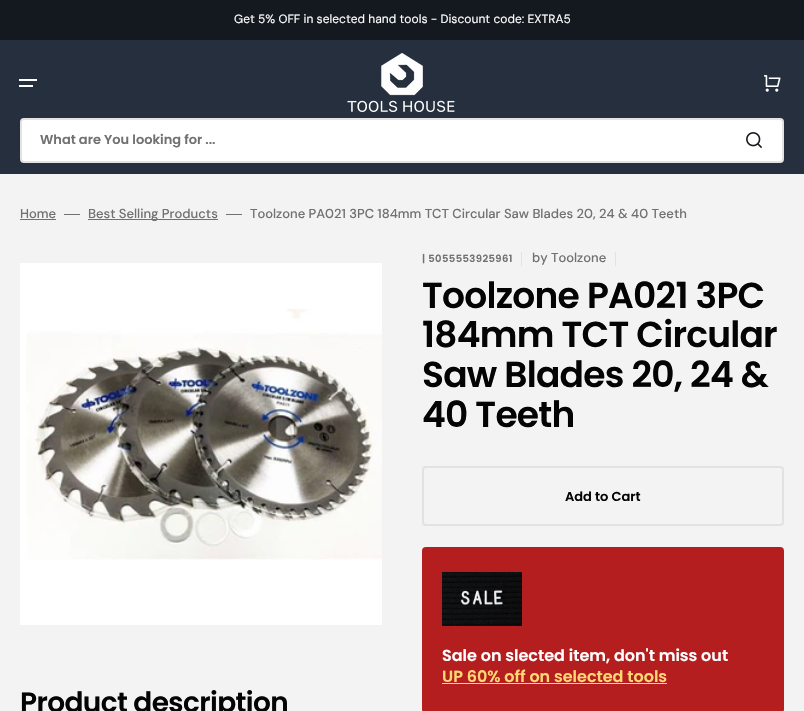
void draw(SkCanvas* canvas) {
    SkPaint paint;
    paint.setAntiAlias(true);
    auto spacedText = [&](const char* s, float x, float y, const SkFont& font, const SkPaint& ink, float letter, float word) {
        std::vector<SkGlyphID> glyphs(font.countText(s, strlen(s), SkTextEncoding::kUTF8));
        std::vector<float> xs(glyphs.size());
        font.textToGlyphs(s, strlen(s), SkTextEncoding::kUTF8, glyphs);
        font.getXPos(glyphs, xs, x);
        float extra = 0;
        for (size_t i = 0; i < glyphs.size(); i++) {
            xs[i] += extra;
            extra += letter + word * (glyphs[i] == font.unicharToGlyph(' '));
        }
        canvas->drawTextBlob(SkTextBlob::MakeFromPosHGlyphs(glyphs, xs, y, font), 0, 0, ink);
    };
    canvas->clear(0xFFF4F3F3);
    paint.setColor(0xFF141920);
    canvas->drawRect(SkRect::MakeXYWH(0, 0, 804, 40), paint);
    SkFont font1(fontMgr->matchFamilyStyle("DM Sans", SkFontStyle::Normal()), 12);
    font1.setSubpixel(true);
    paint.setColor(0xFFFFFFFF);
    canvas->drawString("Get 5% OFF in selected hand tools - Discount code: EXTRA5", 234, 23, font1, paint);
    paint.setColor(0xFF252F3D);
    canvas->drawRect(SkRect::MakeXYWH(0, 40, 804, 134), paint);
    paint.setColor(0xFFFFFFFF);
    canvas->drawRect(SkRect::MakeXYWH(19, 79, 18, 2), paint);
    canvas->drawRect(SkRect::MakeXYWH(19, 85, 14, 2), paint);
    canvas->drawImageRect(SkImages::DeferredFromEncodedData(SkData::MakeFromFileName("img1.png")), SkRect::MakeXYWH(347, 53, 108, 60), SkSamplingOptions());
    canvas->drawImageRect(SkImages::DeferredFromEncodedData(SkData::MakeFromFileName("img2.png")), SkRect::MakeXYWH(764, 75, 17, 17), SkSamplingOptions());
    canvas->drawRoundRect(SkRect::MakeXYWH(21, 119, 762, 43), 3, 3, paint);
    paint.setStyle(SkPaint::kStroke_Style);
    paint.setStrokeWidth(2);
    paint.setColor(0xFFE3E1E1);
    canvas->drawRoundRect(SkRect::MakeXYWH(21, 119, 762, 43), 3, 3, paint);
    SkFont font2(fontMgr->matchFamilyStyle("Poppins", SkFontStyle(600, SkFontStyle::kNormal_Width, SkFontStyle::kUpright_Slant)), 13);
    font2.setSubpixel(true);
    paint.setStyle(SkPaint::kFill_Style);
    paint.setColor(0xFF717171);
    canvas->drawString("What are You looking for ...", 40, 144, font2, paint);
    canvas->drawImageRect(SkImages::DeferredFromEncodedData(SkData::MakeFromFileName("img3.png")), SkRect::MakeXYWH(746, 132, 17, 17), SkSamplingOptions());
    SkFont font3(fontMgr->matchFamilyStyle("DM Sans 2", SkFontStyle(500, SkFontStyle::kNormal_Width, SkFontStyle::kUpright_Slant)), 13);
    font3.setSubpixel(true);
    canvas->drawString("Home", 20, 218, font3, paint);
    canvas->drawRect(SkRect::MakeXYWH(20, 219, 36, 1), paint);
    canvas->drawRect(SkRect::MakeXYWH(64, 214, 16, 1), paint);
    canvas->drawRect(SkRect::MakeXYWH(88, 219, 130, 1), paint);
    canvas->drawString("Best Selling Products", 88, 218, font3, paint);
    canvas->drawRect(SkRect::MakeXYWH(226, 214, 16, 1), paint);
    canvas->drawString("Toolzone PA021 3PC 184mm TCT Circular Saw Blades 20, 24 & 40 Teeth", 250, 218, font3, paint);
    SkFont font4(fontMgr->matchFamilyStyle("Poppins", SkFontStyle(600, SkFontStyle::kNormal_Width, SkFontStyle::kUpright_Slant)), 10);
    font4.setSubpixel(true);
    spacedText("| 5055553925961", 422, 262, font4, paint, 0.4f, 0);
    paint.setColor(0xFFE0E3EE);
    canvas->drawRect(SkRect::MakeXYWH(521, 252, 1, 14), paint);
    SkFont font5(fontMgr->matchFamilyStyle("DM Sans", SkFontStyle(500, SkFontStyle::kNormal_Width, SkFontStyle::kUpright_Slant)), 13);
    font5.setSubpixel(true);
    paint.setColor(0xFF717171);
    canvas->drawString("by", 532, 262, font5, paint);
    canvas->drawString("Toolzone", 551, 262, font3, paint);
    paint.setColor(0xFFE0E3EE);
    canvas->drawRect(SkRect::MakeXYWH(615, 252, 1, 14), paint);
    SkFont font6(fontMgr->matchFamilyStyle("Poppins", SkFontStyle(600, SkFontStyle::kNormal_Width, SkFontStyle::kUpright_Slant)), 36);
    font6.setSubpixel(true);
    paint.setColor(0xFF040404);
    spacedText("Toolzone PA021 3PC", 422, 308, font6, paint, -0.75f, 0);
    spacedText("184mm TCT Circular", 422, 347, font6, paint, -0.75f, 0);
    spacedText("Saw Blades 20, 24 &", 422, 387, font6, paint, -0.75f, 0);
    spacedText("40 Teeth", 422, 427, font6, paint, -0.75f, 0);
    paint.setStyle(SkPaint::kStroke_Style);
    paint.setColor(0xFFE3E1E1);
    canvas->drawRoundRect(SkRect::MakeXYWH(423, 467, 360, 58), 3, 3, paint);
    paint.setStyle(SkPaint::kFill_Style);
    paint.setColor(0xFF040404);
    canvas->drawString("Add to Cart", 565, 501, font2, paint);
    paint.setColor(0xFFB51E1E);
    canvas->drawRoundRect(SkRect::MakeXYWH(422, 547, 362, 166), 4, 4, paint);
    canvas->drawImageRect(SkImages::DeferredFromEncodedData(SkData::MakeFromFileName("img4.png")), SkRect::MakeXYWH(442, 572, 80, 54), SkSamplingOptions());
    SkFont font7(fontMgr->matchFamilyStyle("Poppins", SkFontStyle(600, SkFontStyle::kNormal_Width, SkFontStyle::kUpright_Slant)), 16);
    font7.setSubpixel(true);
    paint.setColor(0xFFFFFFFF);
    canvas->drawString("Sale on slected item, don't miss out", 442, 661, font7, paint);
    paint.setColor(0xFFFFD875);
    canvas->drawString("UP 60% off on selected tools", 442, 682, font7, paint);
    canvas->drawRect(SkRect::MakeXYWH(442, 683, 225, 1), paint);
    paint.setColor(0xFFFFFFFF);
    canvas->drawRect(SkRect::MakeXYWH(20, 263, 362, 362), paint);
    canvas->drawImageRect(SkImages::DeferredFromEncodedData(SkData::MakeFromFileName("img5.png")), SkRect::MakeXYWH(26, 309, 356, 251), SkSamplingOptions());
    SkFont font8(fontMgr->matchFamilyStyle("Poppins", SkFontStyle(600, SkFontStyle::kNormal_Width, SkFontStyle::kUpright_Slant)), 28);
    font8.setSubpixel(true);
    paint.setColor(0xFF040404);
    spacedText("Product description", 20, 712, font8, paint, -0.6f, 0);
}
